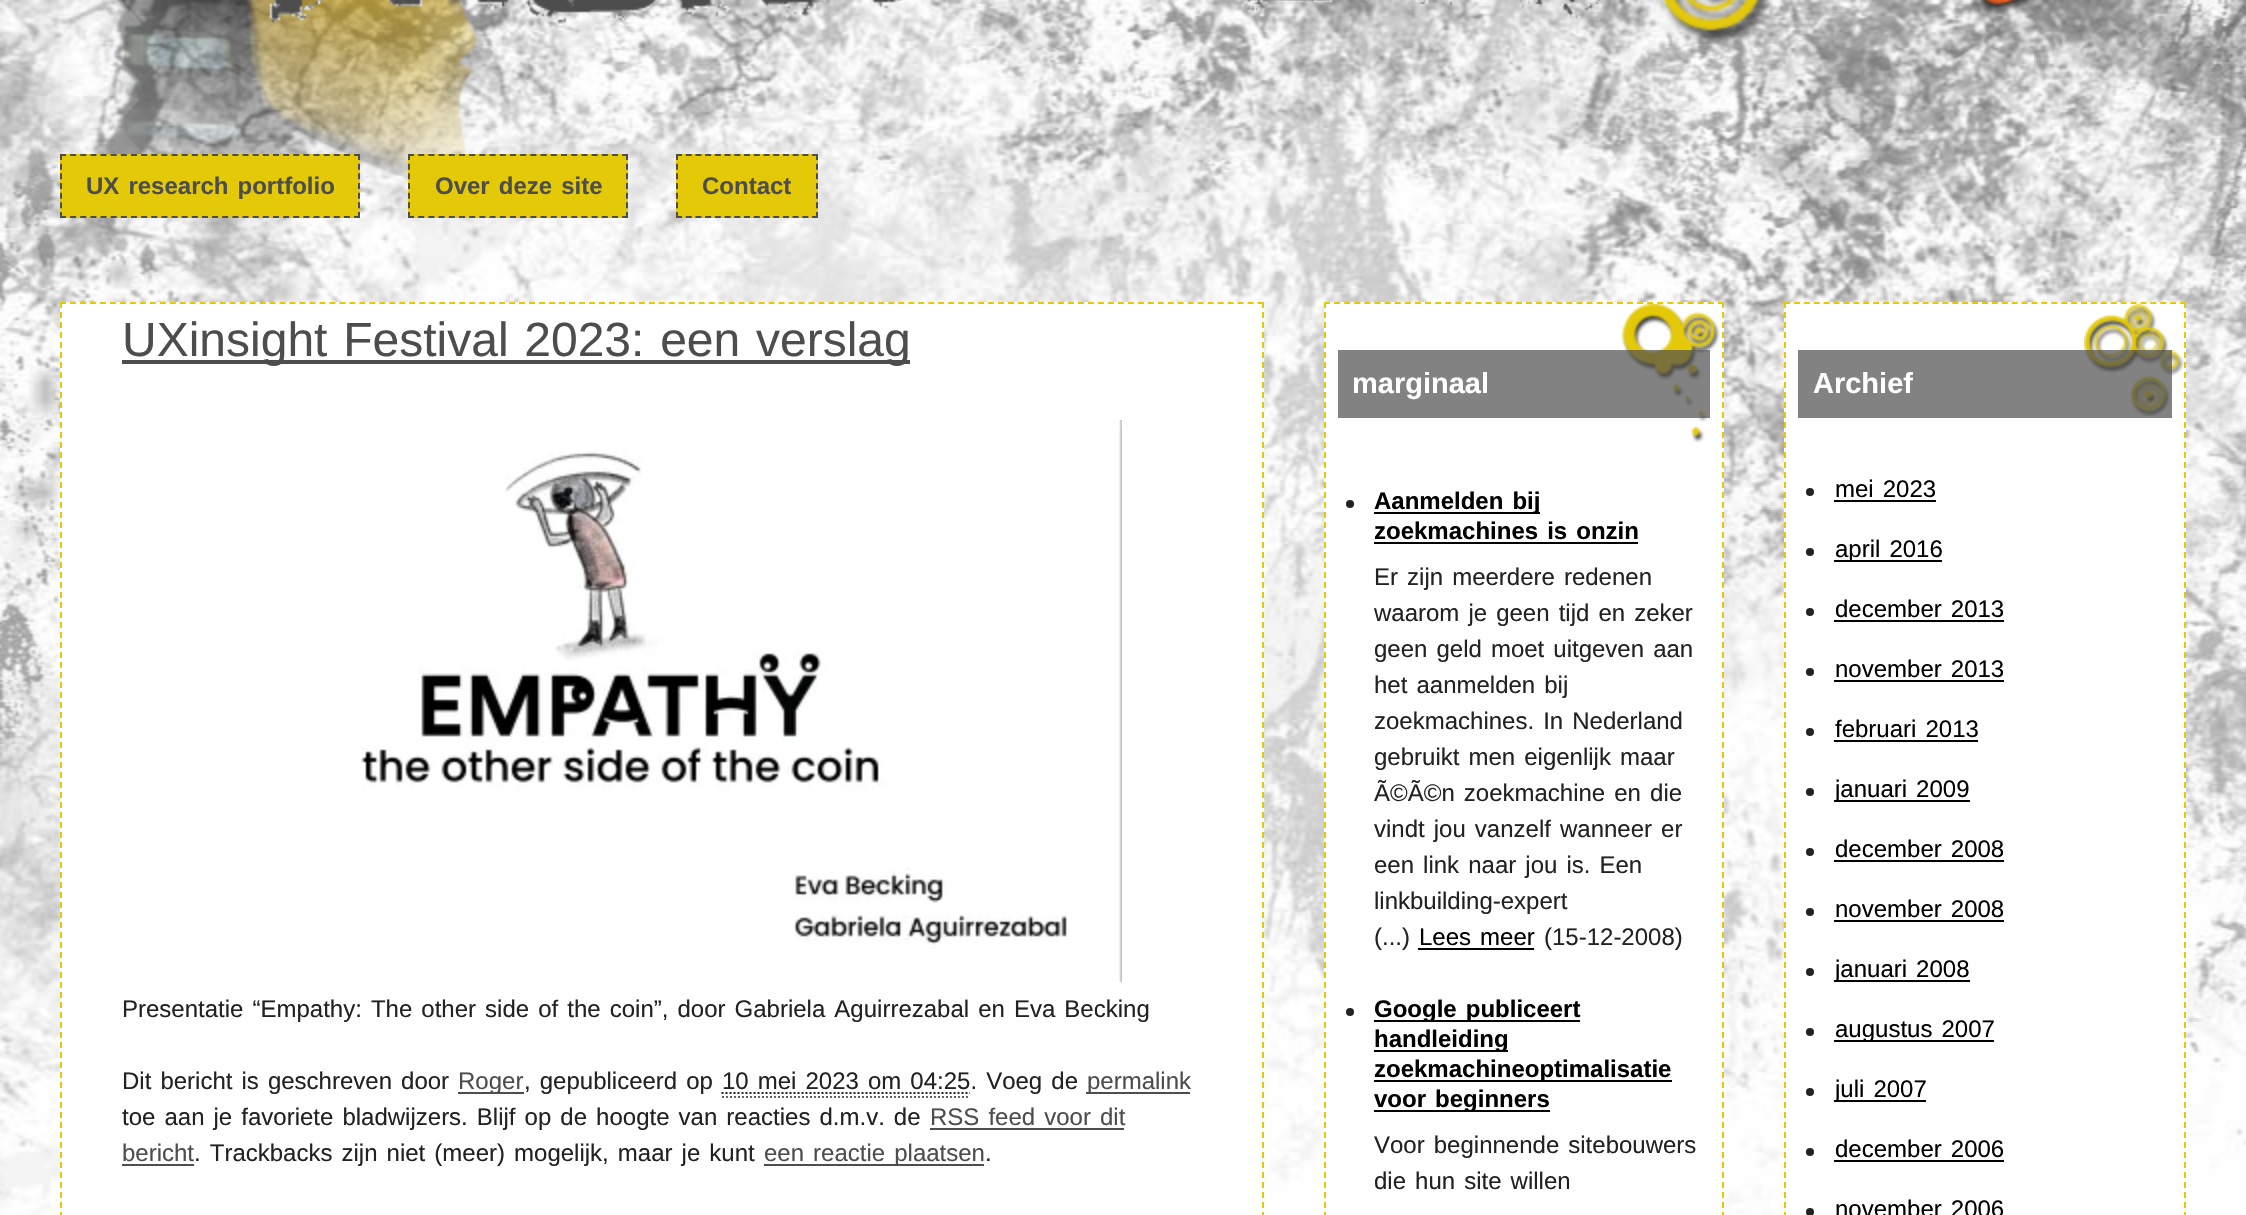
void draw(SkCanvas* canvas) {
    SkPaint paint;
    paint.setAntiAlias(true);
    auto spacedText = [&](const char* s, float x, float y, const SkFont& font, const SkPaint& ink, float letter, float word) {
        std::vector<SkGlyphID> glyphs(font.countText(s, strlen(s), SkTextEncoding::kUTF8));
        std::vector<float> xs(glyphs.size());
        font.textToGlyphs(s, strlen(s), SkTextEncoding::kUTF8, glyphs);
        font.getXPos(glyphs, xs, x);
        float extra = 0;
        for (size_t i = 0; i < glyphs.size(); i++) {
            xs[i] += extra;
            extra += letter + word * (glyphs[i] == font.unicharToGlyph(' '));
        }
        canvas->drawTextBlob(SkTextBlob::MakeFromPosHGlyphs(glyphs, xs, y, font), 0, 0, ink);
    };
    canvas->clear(0xFFFFFFFF);
    canvas->drawImageRect(SkImages::DeferredFromEncodedData(SkData::MakeFromFileName("img1.png")), SkRect::MakeXYWH(0, 0, 2246, 1215), SkSamplingOptions());
    canvas->drawImageRect(SkImages::DeferredFromEncodedData(SkData::MakeFromFileName("img2.png")), SkRect::MakeXYWH(119, 0, 1654, 249), SkSamplingOptions());
    canvas->drawImageRect(SkImages::DeferredFromEncodedData(SkData::MakeFromFileName("img3.png")), SkRect::MakeXYWH(269, 0, 1333, 24), SkSamplingOptions());
    canvas->drawImageRect(SkImages::DeferredFromEncodedData(SkData::MakeFromFileName("img4.png")), SkRect::MakeXYWH(1975, 0, 68, 15), SkSamplingOptions());
    paint.setColor(0xFFE4C908);
    canvas->drawRect(SkRect::MakeXYWH(60, 154, 300, 64), paint);
    paint.setStyle(SkPaint::kStroke_Style);
    paint.setStrokeWidth(2);
    paint.setColor(0xFF4D4D4D);
    paint.setPathEffect(SkDashPathEffect::Make({{6, 4.14f}}, 0));
    canvas->drawPath(SkPathBuilder().moveTo(60, 155).lineTo(360, 155).detach(), paint);
    paint.setPathEffect(nullptr);
    paint.setPathEffect(SkDashPathEffect::Make({{6, 3.66f}}, 0));
    canvas->drawPath(SkPathBuilder().moveTo(359, 154).lineTo(359, 218).detach(), paint);
    paint.setPathEffect(nullptr);
    paint.setPathEffect(SkDashPathEffect::Make({{6, 4.14f}}, 0));
    canvas->drawPath(SkPathBuilder().moveTo(60, 217).lineTo(360, 217).detach(), paint);
    paint.setPathEffect(nullptr);
    paint.setPathEffect(SkDashPathEffect::Make({{6, 3.66f}}, 0));
    canvas->drawPath(SkPathBuilder().moveTo(61, 154).lineTo(61, 218).detach(), paint);
    paint.setPathEffect(nullptr);
    SkFont font1(fontMgr->matchFamilyStyle("Liberation Sans", SkFontStyle::Bold()), 24);
    font1.setSubpixel(true);
    paint.setStyle(SkPaint::kFill_Style);
    spacedText("UX research portfolio", 86, 194, font1, paint, 0, 2.4f);
    paint.setColor(0xFFE4C908);
    canvas->drawRect(SkRect::MakeXYWH(408, 154, 220, 64), paint);
    paint.setStyle(SkPaint::kStroke_Style);
    paint.setColor(0xFF4D4D4D);
    paint.setPathEffect(SkDashPathEffect::Make({{6, 4.2f}}, 0));
    canvas->drawPath(SkPathBuilder().moveTo(408, 155).lineTo(628, 155).detach(), paint);
    paint.setPathEffect(nullptr);
    paint.setPathEffect(SkDashPathEffect::Make({{6, 3.66f}}, 0));
    canvas->drawPath(SkPathBuilder().moveTo(627, 154).lineTo(627, 218).detach(), paint);
    paint.setPathEffect(nullptr);
    paint.setPathEffect(SkDashPathEffect::Make({{6, 4.2f}}, 0));
    canvas->drawPath(SkPathBuilder().moveTo(408, 217).lineTo(628, 217).detach(), paint);
    paint.setPathEffect(nullptr);
    paint.setPathEffect(SkDashPathEffect::Make({{6, 3.66f}}, 0));
    canvas->drawPath(SkPathBuilder().moveTo(409, 154).lineTo(409, 218).detach(), paint);
    paint.setPathEffect(nullptr);
    paint.setStyle(SkPaint::kFill_Style);
    spacedText("Over deze site", 435, 194, font1, paint, 0, 2.4f);
    paint.setColor(0xFFE4C908);
    canvas->drawRect(SkRect::MakeXYWH(676, 154, 142, 64), paint);
    paint.setStyle(SkPaint::kStroke_Style);
    paint.setColor(0xFF4D4D4D);
    paint.setPathEffect(SkDashPathEffect::Make({{6, 3.72f}}, 0));
    canvas->drawPath(SkPathBuilder().moveTo(676, 155).lineTo(818, 155).detach(), paint);
    paint.setPathEffect(nullptr);
    paint.setPathEffect(SkDashPathEffect::Make({{6, 3.66f}}, 0));
    canvas->drawPath(SkPathBuilder().moveTo(817, 154).lineTo(817, 218).detach(), paint);
    paint.setPathEffect(nullptr);
    paint.setPathEffect(SkDashPathEffect::Make({{6, 3.72f}}, 0));
    canvas->drawPath(SkPathBuilder().moveTo(676, 217).lineTo(818, 217).detach(), paint);
    paint.setPathEffect(nullptr);
    paint.setPathEffect(SkDashPathEffect::Make({{6, 3.66f}}, 0));
    canvas->drawPath(SkPathBuilder().moveTo(677, 154).lineTo(677, 218).detach(), paint);
    paint.setPathEffect(nullptr);
    paint.setStyle(SkPaint::kFill_Style);
    canvas->drawString("Contact", 702, 194, font1, paint);
    paint.setColor(0xFFFFFFFF);
    canvas->drawRect(SkRect::MakeXYWH(60, 302, 1204, 913), paint);
    paint.setStyle(SkPaint::kStroke_Style);
    paint.setColor(0xFFE4C908);
    paint.setPathEffect(SkDashPathEffect::Make({{6, 3.98f}}, 0));
    canvas->drawPath(SkPathBuilder().moveTo(60, 303).lineTo(1264, 303).detach(), paint);
    paint.setPathEffect(nullptr);
    paint.setPathEffect(SkDashPathEffect::Make({{6, 4}}, 0));
    canvas->drawPath(SkPathBuilder().moveTo(1263, 302).lineTo(1263, 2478).detach(), paint);
    paint.setPathEffect(nullptr);
    paint.setPathEffect(SkDashPathEffect::Make({{6, 4}}, 0));
    canvas->drawPath(SkPathBuilder().moveTo(61, 302).lineTo(61, 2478).detach(), paint);
    paint.setPathEffect(nullptr);
    paint.setStyle(SkPaint::kFill_Style);
    paint.setColor(0xFF4D4D4D);
    canvas->drawRect(SkRect::MakeXYWH(122, 360, 788, 4), paint);
    SkFont font2(fontMgr->matchFamilyStyle("Liberation Sans", SkFontStyle::Normal()), 48);
    font2.setSubpixel(true);
    spacedText("UXinsight Festival 2023: een verslag", 122, 356, font2, paint, 0, 2.4f);
    canvas->drawImageRect(SkImages::DeferredFromEncodedData(SkData::MakeFromFileName("img5.png")), SkRect::MakeXYWH(361, 420, 761, 562), SkSamplingOptions());
    SkFont font3(fontMgr->matchFamilyStyle("Liberation Sans", SkFontStyle::Normal()), 24);
    font3.setSubpixel(true);
    paint.setColor(0xFF222222);
    spacedText("Presentatie “Empathy: The other side of the coin”, door Gabriela Aguirrezabal en Eva Becking", 122, 1017, font3, paint, 0, 2.4f);
    spacedText("Dit bericht is geschreven door", 122, 1089, font3, paint, 0, 2.4f);
    paint.setColor(0xFF4D4D4D);
    canvas->drawRect(SkRect::MakeXYWH(458, 1092, 66, 2), paint);
    canvas->drawString("Roger", 458, 1089, font3, paint);
    paint.setColor(0xFF222222);
    spacedText(", gepubliceerd op", 524, 1089, font3, paint, 0, 2.4f);
    paint.setStyle(SkPaint::kStroke_Style);
    paint.setPathEffect(SkDashPathEffect::Make({{2, 2}}, 0));
    canvas->drawPath(SkPathBuilder().moveTo(721.5f, 1093).lineTo(970, 1093).detach(), paint);
    paint.setPathEffect(nullptr);
    paint.setStyle(SkPaint::kFill_Style);
    spacedText("10 mei 2023 om 04:25. Voeg de", 722, 1089, font3, paint, 0, 2.4f);
    paint.setStyle(SkPaint::kStroke_Style);
    paint.setColor(0xFF666666);
    paint.setPathEffect(SkDashPathEffect::Make({{2, 2}}, 0));
    canvas->drawPath(SkPathBuilder().moveTo(722, 1097).lineTo(970, 1097).detach(), paint);
    paint.setPathEffect(nullptr);
    paint.setStyle(SkPaint::kFill_Style);
    paint.setColor(0xFF4D4D4D);
    canvas->drawRect(SkRect::MakeXYWH(1086, 1092, 104, 2), paint);
    canvas->drawString("permalink", 1087, 1089, font3, paint);
    paint.setColor(0xFF222222);
    spacedText("toe aan je favoriete bladwijzers. Blijf op de hoogte van reacties d.m.v. de", 122, 1125, font3, paint, 0, 2.4f);
    paint.setColor(0xFF4D4D4D);
    spacedText("RSS feed voor dit", 930, 1125, font3, paint, 0, 2.4f);
    canvas->drawRect(SkRect::MakeXYWH(930, 1128, 194, 2), paint);
    canvas->drawString("bericht", 122, 1161, font3, paint);
    canvas->drawRect(SkRect::MakeXYWH(122, 1164, 72, 2), paint);
    paint.setColor(0xFF222222);
    spacedText(". Trackbacks zijn niet (meer) mogelijk, maar je kunt", 194, 1161, font3, paint, 0, 2.4f);
    paint.setColor(0xFF4D4D4D);
    canvas->drawRect(SkRect::MakeXYWH(764, 1164, 220, 2), paint);
    spacedText("een reactie plaatsen", 764, 1161, font3, paint, 0, 2.4f);
    paint.setColor(0xFF222222);
    canvas->drawString(".", 985, 1161, font3, paint);
    paint.setColor(0xFFFFFFFF);
    canvas->drawRect(SkRect::MakeXYWH(1324, 302, 400, 913), paint);
    canvas->drawImageRect(SkImages::DeferredFromEncodedData(SkData::MakeFromFileName("img6.png")), SkRect::MakeXYWH(1622, 304, 98, 138), SkSamplingOptions());
    paint.setStyle(SkPaint::kStroke_Style);
    paint.setColor(0xFFE4C908);
    paint.setPathEffect(SkDashPathEffect::Make({{6, 4.1f}}, 0));
    canvas->drawPath(SkPathBuilder().moveTo(1324, 303).lineTo(1724, 303).detach(), paint);
    paint.setPathEffect(nullptr);
    paint.setPathEffect(SkDashPathEffect::Make({{6, 4}}, 0));
    canvas->drawPath(SkPathBuilder().moveTo(1723, 302).lineTo(1723, 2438).detach(), paint);
    paint.setPathEffect(nullptr);
    paint.setPathEffect(SkDashPathEffect::Make({{6, 4}}, 0));
    canvas->drawPath(SkPathBuilder().moveTo(1325, 302).lineTo(1325, 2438).detach(), paint);
    paint.setPathEffect(nullptr);
    paint.setStyle(SkPaint::kFill_Style);
    paint.setColor(0xB34D4D4D);
    canvas->drawRect(SkRect::MakeXYWH(1338, 350, 372, 68), paint);
    SkFont font4(fontMgr->matchFamilyStyle("Liberation Sans", SkFontStyle::Bold()), 29);
    font4.setSubpixel(true);
    paint.setColor(0xFFFFFFFF);
    canvas->drawString("marginaal", 1352, 393, font4, paint);
    paint.setColor(0xFF222222);
    canvas->drawCircle(1350, 504, 4, paint);
    paint.setColor(0xFF000000);
    canvas->drawRect(SkRect::MakeXYWH(1374, 512, 166, 2), paint);
    spacedText("Aanmelden bij", 1374, 509, font1, paint, 0, 2.4f);
    spacedText("zoekmachines is onzin", 1374, 539, font1, paint, 0, 2.4f);
    canvas->drawRect(SkRect::MakeXYWH(1374, 542, 264, 2), paint);
    paint.setColor(0xFF222222);
    spacedText("Er zijn meerdere redenen", 1374, 585, font3, paint, 0, 2.4f);
    spacedText("waarom je geen tijd en zeker", 1374, 621, font3, paint, 0, 2.4f);
    spacedText("geen geld moet uitgeven aan", 1374, 657, font3, paint, 0, 2.4f);
    spacedText("het aanmelden bij", 1374, 693, font3, paint, 0, 2.4f);
    spacedText("zoekmachines. In Nederland", 1374, 729, font3, paint, 0, 2.4f);
    spacedText("gebruikt men eigenlijk maar", 1374, 765, font3, paint, 0, 2.4f);
    spacedText("Ã©Ã©n zoekmachine en die", 1374, 801, font3, paint, 0, 2.4f);
    spacedText("vindt jou vanzelf wanneer er", 1374, 837, font3, paint, 0, 2.4f);
    spacedText("een link naar jou is. Een", 1374, 873, font3, paint, 0, 2.4f);
    canvas->drawString("linkbuilding-expert", 1374, 909, font3, paint);
    canvas->drawString("(...)", 1374, 945, font3, paint);
    paint.setColor(0xFF000000);
    spacedText("Lees meer", 1419, 945, font3, paint, 0, 2.4f);
    canvas->drawRect(SkRect::MakeXYWH(1418, 948, 116, 2), paint);
    paint.setColor(0xFF222222);
    canvas->drawString("(15-12-2008)", 1544, 945, font3, paint);
    canvas->drawCircle(1350, 1012, 4, paint);
    paint.setColor(0xFF000000);
    canvas->drawRect(SkRect::MakeXYWH(1374, 1020, 206, 2), paint);
    spacedText("Google publiceert", 1374, 1017, font1, paint, 0, 2.4f);
    canvas->drawRect(SkRect::MakeXYWH(1374, 1050, 134, 2), paint);
    canvas->drawString("handleiding", 1374, 1047, font1, paint);
    canvas->drawRect(SkRect::MakeXYWH(1374, 1080, 298, 2), paint);
    canvas->drawString("zoekmachineoptimalisatie", 1374, 1077, font1, paint);
    canvas->drawRect(SkRect::MakeXYWH(1374, 1110, 176, 2), paint);
    spacedText("voor beginners", 1374, 1107, font1, paint, 0, 2.4f);
    paint.setColor(0xFF222222);
    spacedText("Voor beginnende sitebouwers", 1374, 1153, font3, paint, 0, 2.4f);
    spacedText("die hun site willen", 1374, 1189, font3, paint, 0, 2.4f);
    paint.setColor(0xFFFFFFFF);
    canvas->drawRect(SkRect::MakeXYWH(1784, 302, 402, 913), paint);
    canvas->drawImageRect(SkImages::DeferredFromEncodedData(SkData::MakeFromFileName("img7.png")), SkRect::MakeXYWH(2084, 304, 100, 112), SkSamplingOptions());
    paint.setStyle(SkPaint::kStroke_Style);
    paint.setColor(0xFFE4C908);
    paint.setPathEffect(SkDashPathEffect::Make({{6, 3.9f}}, 0));
    canvas->drawPath(SkPathBuilder().moveTo(1784, 303).lineTo(2186, 303).detach(), paint);
    paint.setPathEffect(nullptr);
    paint.setPathEffect(SkDashPathEffect::Make({{6, 4}}, 0));
    canvas->drawPath(SkPathBuilder().moveTo(2185, 302).lineTo(2185, 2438).detach(), paint);
    paint.setPathEffect(nullptr);
    paint.setPathEffect(SkDashPathEffect::Make({{6, 4}}, 0));
    canvas->drawPath(SkPathBuilder().moveTo(1785, 302).lineTo(1785, 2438).detach(), paint);
    paint.setPathEffect(nullptr);
    paint.setStyle(SkPaint::kFill_Style);
    paint.setColor(0xB34D4D4D);
    canvas->drawRect(SkRect::MakeXYWH(1798, 350, 374, 68), paint);
    paint.setColor(0xFFFFFFFF);
    canvas->drawString("Archief", 1813, 393, font4, paint);
    paint.setColor(0xFF222222);
    canvas->drawCircle(1810, 492, 4, paint);
    paint.setColor(0xFF000000);
    spacedText("mei 2023", 1835, 497, font3, paint, 0, 2.4f);
    canvas->drawRect(SkRect::MakeXYWH(1834, 500, 102, 2), paint);
    paint.setColor(0xFF222222);
    canvas->drawCircle(1810, 552, 4, paint);
    paint.setColor(0xFF000000);
    canvas->drawRect(SkRect::MakeXYWH(1834, 560, 108, 2), paint);
    spacedText("april 2016", 1835, 557, font3, paint, 0, 2.4f);
    paint.setColor(0xFF222222);
    canvas->drawCircle(1810, 612, 4, paint);
    paint.setColor(0xFF000000);
    spacedText("december 2013", 1835, 617, font3, paint, 0, 2.4f);
    canvas->drawRect(SkRect::MakeXYWH(1834, 620, 170, 2), paint);
    paint.setColor(0xFF222222);
    canvas->drawCircle(1810, 672, 4, paint);
    paint.setColor(0xFF000000);
    spacedText("november 2013", 1835, 677, font3, paint, 0, 2.4f);
    canvas->drawRect(SkRect::MakeXYWH(1834, 680, 170, 2), paint);
    paint.setColor(0xFF222222);
    canvas->drawCircle(1810, 732, 4, paint);
    paint.setColor(0xFF000000);
    spacedText("februari 2013", 1835, 737, font3, paint, 0, 2.4f);
    canvas->drawRect(SkRect::MakeXYWH(1834, 740, 144, 2), paint);
    paint.setColor(0xFF222222);
    canvas->drawCircle(1810, 792, 4, paint);
    paint.setColor(0xFF000000);
    canvas->drawRect(SkRect::MakeXYWH(1834, 800, 136, 2), paint);
    spacedText("januari 2009", 1835, 797, font3, paint, 0, 2.4f);
    paint.setColor(0xFF222222);
    canvas->drawCircle(1810, 852, 4, paint);
    paint.setColor(0xFF000000);
    spacedText("december 2008", 1835, 857, font3, paint, 0, 2.4f);
    canvas->drawRect(SkRect::MakeXYWH(1834, 860, 170, 2), paint);
    paint.setColor(0xFF222222);
    canvas->drawCircle(1810, 912, 4, paint);
    paint.setColor(0xFF000000);
    spacedText("november 2008", 1835, 917, font3, paint, 0, 2.4f);
    canvas->drawRect(SkRect::MakeXYWH(1834, 920, 170, 2), paint);
    paint.setColor(0xFF222222);
    canvas->drawCircle(1810, 972, 4, paint);
    paint.setColor(0xFF000000);
    canvas->drawRect(SkRect::MakeXYWH(1834, 980, 136, 2), paint);
    spacedText("januari 2008", 1835, 977, font3, paint, 0, 2.4f);
    paint.setColor(0xFF222222);
    canvas->drawCircle(1810, 1032, 4, paint);
    paint.setColor(0xFF000000);
    canvas->drawRect(SkRect::MakeXYWH(1834, 1040, 160, 2), paint);
    spacedText("augustus 2007", 1835, 1037, font3, paint, 0, 2.4f);
    paint.setColor(0xFF222222);
    canvas->drawCircle(1810, 1092, 4, paint);
    paint.setColor(0xFF000000);
    canvas->drawRect(SkRect::MakeXYWH(1834, 1100, 92, 2), paint);
    spacedText("juli 2007", 1835, 1097, font3, paint, 0, 2.4f);
    paint.setColor(0xFF222222);
    canvas->drawCircle(1810, 1152, 4, paint);
    paint.setColor(0xFF000000);
    spacedText("december 2006", 1835, 1157, font3, paint, 0, 2.4f);
    canvas->drawRect(SkRect::MakeXYWH(1834, 1160, 170, 2), paint);
    paint.setColor(0xFF222222);
    canvas->drawCircle(1810, 1212, 4, paint);
    paint.setColor(0xFF000000);
    spacedText("november 2006", 1835, 1217, font3, paint, 0, 2.4f);
}
